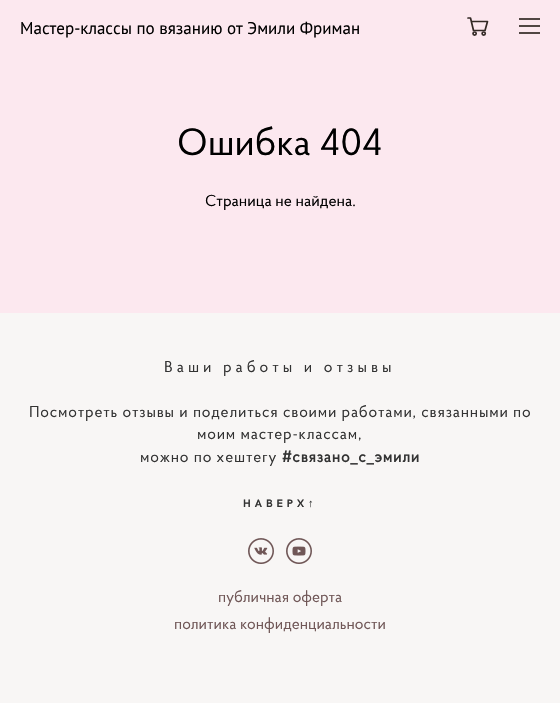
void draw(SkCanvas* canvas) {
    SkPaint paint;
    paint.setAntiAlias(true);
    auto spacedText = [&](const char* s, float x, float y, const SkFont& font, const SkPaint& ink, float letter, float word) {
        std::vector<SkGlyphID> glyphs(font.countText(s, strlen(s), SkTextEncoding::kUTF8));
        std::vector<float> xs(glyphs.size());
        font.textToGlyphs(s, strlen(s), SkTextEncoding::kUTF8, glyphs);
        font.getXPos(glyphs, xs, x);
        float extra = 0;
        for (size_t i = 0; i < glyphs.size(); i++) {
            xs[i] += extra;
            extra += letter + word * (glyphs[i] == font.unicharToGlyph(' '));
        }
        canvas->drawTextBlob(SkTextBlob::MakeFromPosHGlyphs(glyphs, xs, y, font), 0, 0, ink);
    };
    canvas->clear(0xFFFCE8EF);
    SkFont font1(fontMgr->matchFamilyStyle("PT Sans", SkFontStyle::Normal()), 17);
    font1.setSubpixel(true);
    paint.setColor(0xFF000000);
    canvas->drawString("Мастер-классы по вязанию от Эмили Фриман", 20, 34, font1, paint);
    paint.setStyle(SkPaint::kStroke_Style);
    paint.setStrokeWidth(1.7f);
    paint.setStrokeCap(SkPaint::kRound_Cap);
    paint.setStrokeJoin(SkPaint::kRound_Join);
    paint.setColor(0xFF332925);
    canvas->drawPath(SkPathBuilder().moveTo(468, 18).lineTo(470.5f, 18).lineTo(473.5f, 30.5f).lineTo(485, 30.5f).lineTo(487.5f, 21.5f).lineTo(472, 21.5f).detach(), paint);
    paint.setStrokeCap(SkPaint::kButt_Cap);
    paint.setStrokeJoin(SkPaint::kMiter_Join);
    canvas->drawCircle(474.6f, 33.6f, 1.6f, paint);
    canvas->drawCircle(483.7f, 33.6f, 1.6f, paint);
    paint.setStyle(SkPaint::kFill_Style);
    paint.setColor(0xFF514643);
    canvas->drawRect(SkRect::MakeXYWH(519, 18, 21, 2), paint);
    canvas->drawRect(SkRect::MakeXYWH(519, 25, 21, 2), paint);
    canvas->drawRect(SkRect::MakeXYWH(519, 32, 21, 2), paint);
    SkFont font2(fontMgr->matchFamilyStyle("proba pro", SkFontStyle::Normal()), 38);
    font2.setSubpixel(true);
    paint.setColor(0xFF000000);
    canvas->drawString("Ошибка 404", 177, 155, font2, paint);
    SkFont font3(fontMgr->matchFamilyStyle("proba pro", SkFontStyle::Normal()), 16);
    font3.setSubpixel(true);
    canvas->drawString("Страница не найдена.", 205, 206, font3, paint);
    paint.setColor(0xFFF8F6F5);
    canvas->drawRect(SkRect::MakeXYWH(0, 313, 560, 390), paint);
    SkFont font4(fontMgr->matchFamilyStyle("proba pro", SkFontStyle::Normal()), 15.75f);
    font4.setSubpixel(true);
    paint.setColor(0xFF333333);
    spacedText("Ваши работы и отзывы", 164, 372, font4, paint, 4, 0);
    spacedText("Посмотреть отзывы и поделиться своими работами, связанными по", 29, 417, font4, paint, 0.8f, 0);
    spacedText("моим мастер-классам,", 197, 439, font4, paint, 0.8f, 0);
    spacedText("можно по хештегу", 140, 462, font4, paint, 0.8f, 0);
    SkFont font5(fontMgr->matchFamilyStyle("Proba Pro", SkFontStyle::Bold()), 15.75f);
    font5.setSubpixel(true);
    spacedText("#связано_с_эмили", 282, 462, font5, paint, 0.8f, 0);
    SkFont font6(fontMgr->matchFamilyStyle("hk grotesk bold", SkFontStyle::Bold()), 11);
    font6.setSubpixel(true);
    spacedText("НАВЕРХ", 243, 507, font6, paint, 4, 0);
    SkFont font7(fontMgr->matchFamilyStyle("Liberation Serif", SkFontStyle::Normal()), 11);
    font7.setSubpixel(true);
    spacedText("↑", 308, 507, font7, paint, 4, 0);
    canvas->drawImageRect(SkImages::DeferredFromEncodedData(SkData::MakeFromFileName("img1.png")), SkRect::MakeXYWH(248, 538, 26, 26), SkSamplingOptions());
    canvas->drawImageRect(SkImages::DeferredFromEncodedData(SkData::MakeFromFileName("img2.png")), SkRect::MakeXYWH(286, 538, 26, 26), SkSamplingOptions());
    paint.setColor(0xFF705757);
    canvas->drawString("публичная оферта", 218, 602, font4, paint);
    canvas->drawString("политика конфиденциальности", 174, 629, font4, paint);
}
